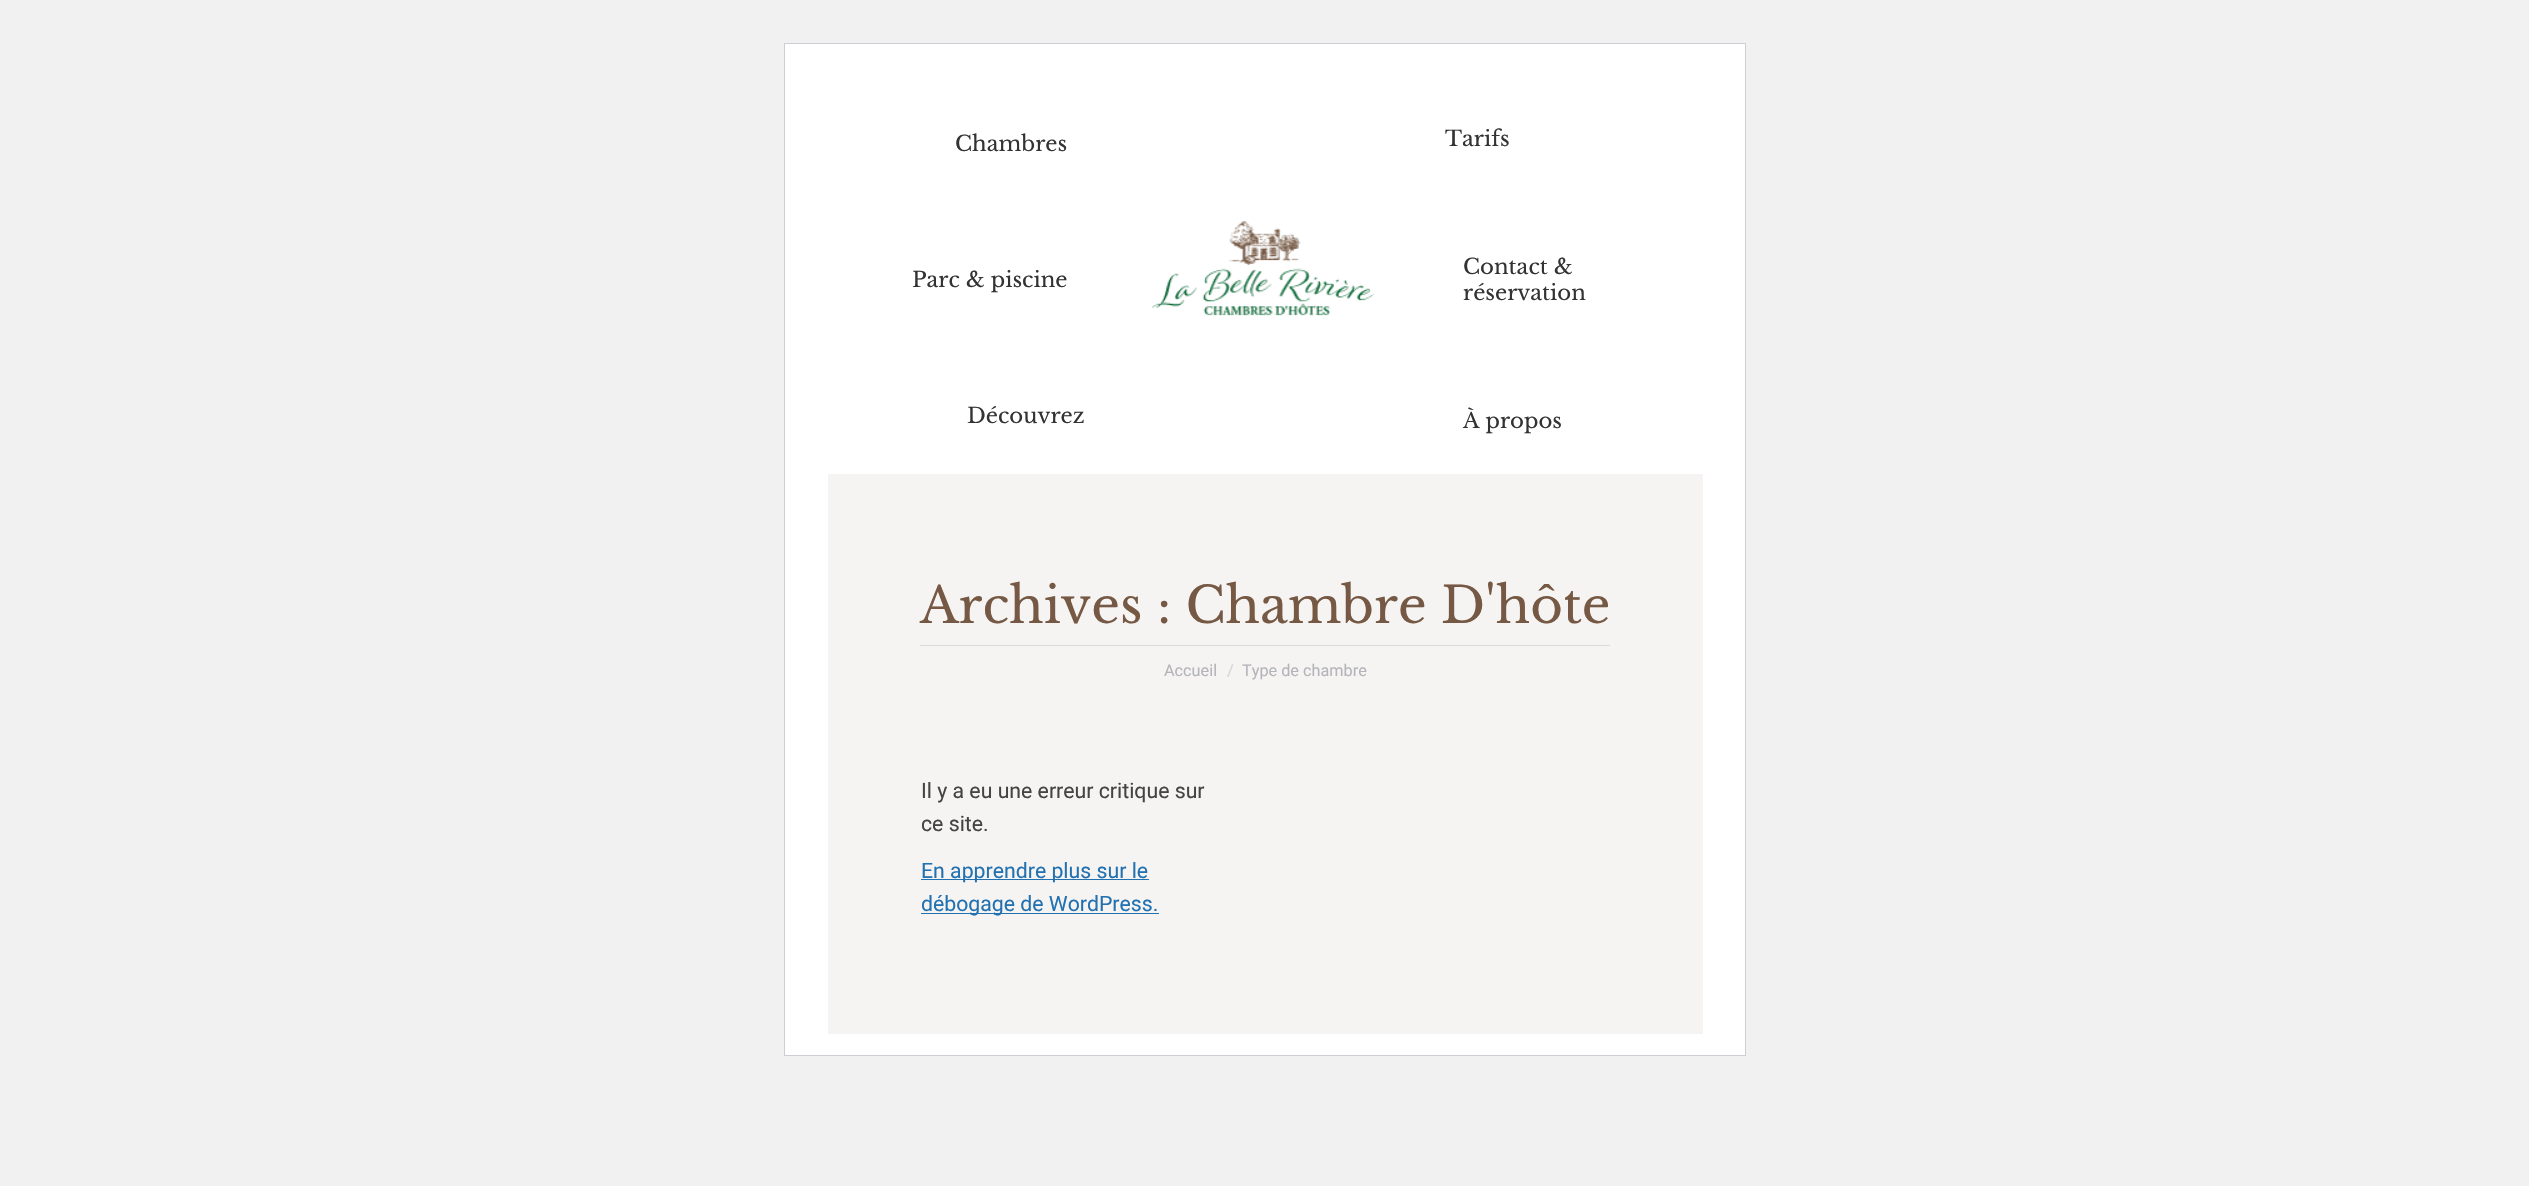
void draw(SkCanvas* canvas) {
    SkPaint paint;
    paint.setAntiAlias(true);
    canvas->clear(0xFFF1F1F1);
    paint.setColor(0xFFFFFFFF);
    canvas->drawRect(SkRect::MakeXYWH(784.5f, 43.5f, 961, 1012), paint);
    paint.setStyle(SkPaint::kStroke_Style);
    paint.setStrokeWidth(1);
    paint.setColor(0xFFCCD0D4);
    canvas->drawRect(SkRect::MakeXYWH(784.5f, 43.5f, 961, 1012), paint);
    paint.setStyle(SkPaint::kFill_Style);
    paint.setColor(0xFFF5F4F2);
    canvas->drawRect(SkRect::MakeXYWH(828, 474, 875, 560), paint);
    SkFont font1(fontMgr->matchFamilyStyle("Libre Baskerville", SkFontStyle::Normal()), 21.25f);
    font1.setSubpixel(true);
    paint.setColor(0xFF333333);
    canvas->drawString("Chambres", 955, 151, font1, paint);
    canvas->drawString("Parc & piscine", 912, 287, font1, paint);
    canvas->drawString("Découvrez", 967, 423, font1, paint);
    canvas->drawImageRect(SkImages::DeferredFromEncodedData(SkData::MakeFromFileName("img1.png")), SkRect::MakeXYWH(1152, 221, 222, 95), SkSamplingOptions());
    canvas->drawString("Tarifs", 1445, 146, font1, paint);
    canvas->drawString("Contact &", 1463, 274, font1, paint);
    canvas->drawString("réservation", 1463, 300, font1, paint);
    canvas->drawString("À propos", 1463, 428, font1, paint);
    paint.setColor(0xFFDADADA);
    canvas->drawRect(SkRect::MakeXYWH(920, 645, 690, 1), paint);
    SkFont font2(fontMgr->matchFamilyStyle("Libre Baskerville", SkFontStyle::Normal()), 50);
    font2.setSubpixel(true);
    paint.setColor(0xFF765944);
    canvas->drawString("Archives : Chambre D'hôte", 920, 623, font2, paint);
    SkFont font3(fontMgr->matchFamilyStyle("Roboto", SkFontStyle::Normal()), 16.25f);
    font3.setSubpixel(true);
    paint.setColor(0xFFB4B5BB);
    canvas->drawString("Accueil", 1164, 676, font3, paint);
    paint.setColor(0xFFD5D5D7);
    canvas->drawString("/", 1227, 676, font3, paint);
    paint.setColor(0xFFB4B5BB);
    canvas->drawString("Type de chambre", 1242, 676, font3, paint);
    SkFont font4(fontMgr->matchFamilyStyle("Roboto", SkFontStyle::Normal()), 21.25f);
    font4.setSubpixel(true);
    paint.setColor(0xFF444444);
    canvas->drawString("Il y a eu une erreur critique sur", 921, 798, font4, paint);
    canvas->drawString("ce site.", 921, 831, font4, paint);
    paint.setColor(0xFF2271B1);
    canvas->drawRect(SkRect::MakeXYWH(921, 879, 228, 1), paint);
    canvas->drawString("En apprendre plus sur le", 921, 878, font4, paint);
    canvas->drawRect(SkRect::MakeXYWH(921, 913, 238, 1), paint);
    canvas->drawString("débogage de WordPress.", 921, 911, font4, paint);
}
